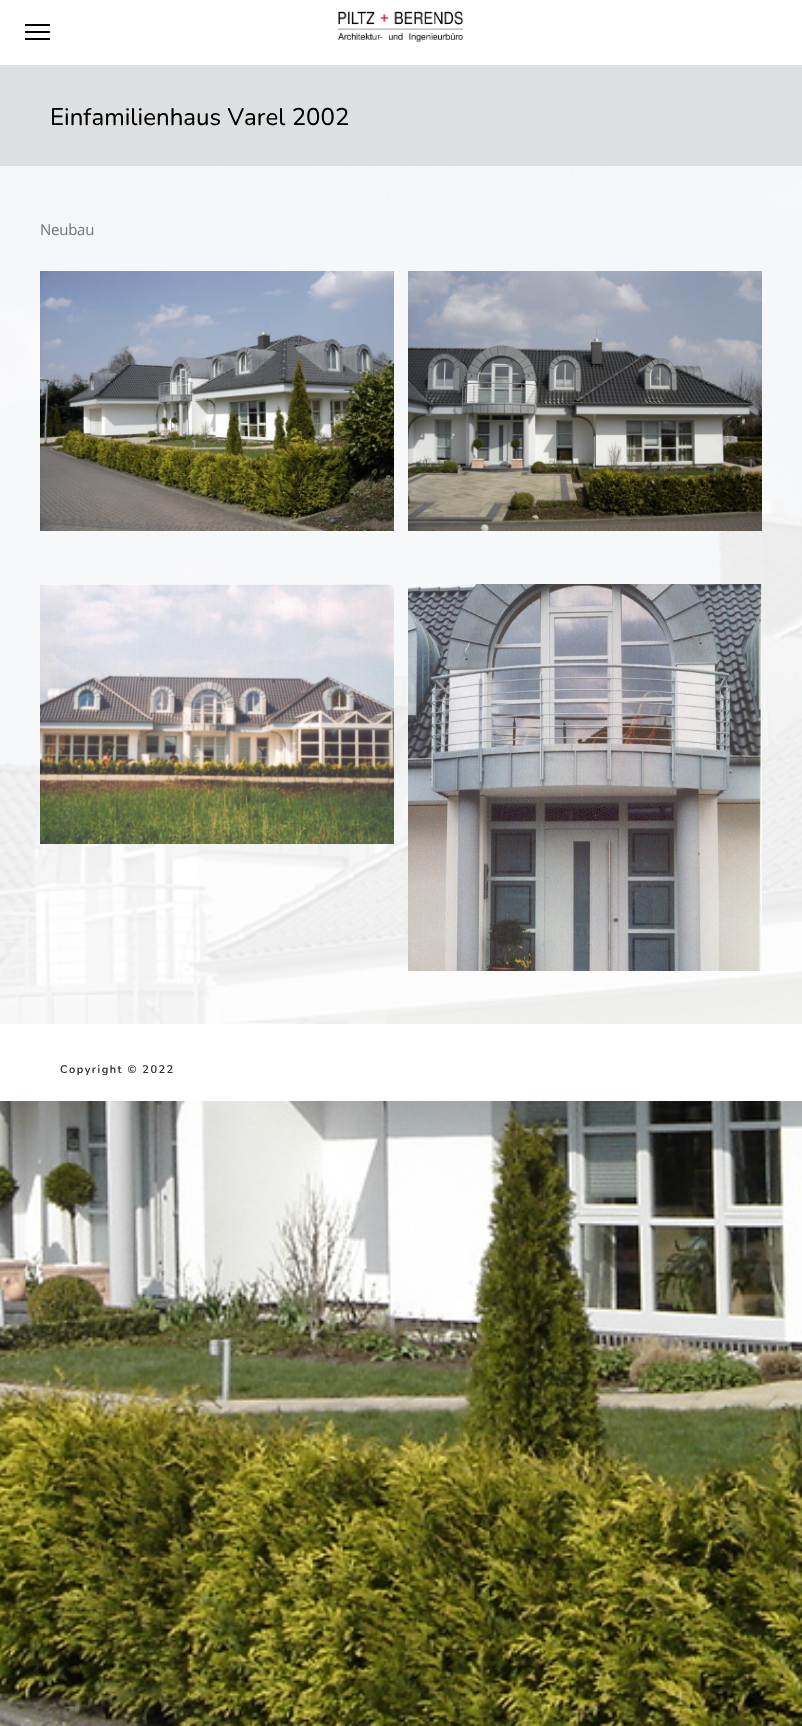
void draw(SkCanvas* canvas) {
    SkPaint paint;
    paint.setAntiAlias(true);
    auto spacedText = [&](const char* s, float x, float y, const SkFont& font, const SkPaint& ink, float letter, float word) {
        std::vector<SkGlyphID> glyphs(font.countText(s, strlen(s), SkTextEncoding::kUTF8));
        std::vector<float> xs(glyphs.size());
        font.textToGlyphs(s, strlen(s), SkTextEncoding::kUTF8, glyphs);
        font.getXPos(glyphs, xs, x);
        float extra = 0;
        for (size_t i = 0; i < glyphs.size(); i++) {
            xs[i] += extra;
            extra += letter + word * (glyphs[i] == font.unicharToGlyph(' '));
        }
        canvas->drawTextBlob(SkTextBlob::MakeFromPosHGlyphs(glyphs, xs, y, font), 0, 0, ink);
    };
    canvas->clear(0xFFFFFFFF);
    paint.setColor(0xFF000000);
    canvas->drawRect(SkRect::MakeXYWH(25, 31, 25, 2), paint);
    canvas->drawRect(SkRect::MakeXYWH(25, 24, 25, 2), paint);
    canvas->drawRect(SkRect::MakeXYWH(25, 38, 25, 2), paint);
    canvas->drawImageRect(SkImages::DeferredFromEncodedData(SkData::MakeFromFileName("img1.png")), SkRect::MakeXYWH(338, 11, 126, 31), SkSamplingOptions());
    canvas->drawImageRect(SkImages::DeferredFromEncodedData(SkData::MakeFromFileName("img6.png")), SkRect::MakeXYWH(0, 166, 802, 1560), SkSamplingOptions());
    paint.setColor(0xE6FFFFFF);
    canvas->drawRect(SkRect::MakeXYWH(0, 166, 802, 858), paint);
    paint.setColor(0xFFDEDFE0);
    canvas->drawRect(SkRect::MakeXYWH(0, 65, 802, 101), paint);
    SkFont font1(fontMgr->matchFamilyStyle("Nunito", SkFontStyle::Normal()), 24);
    font1.setSubpixel(true);
    paint.setColor(0xFF000000);
    spacedText("Einfamilienhaus Varel 2002", 50, 125, font1, paint, 0.05f, 0);
    SkFont font2(fontMgr->matchFamilyStyle("Open Sans", SkFontStyle::Normal()), 15);
    font2.setSubpixel(true);
    paint.setColor(0xFF7A7B7C);
    spacedText("Neubau", 40, 235, font2, paint, -0.25f, 0);
    canvas->drawImageRect(SkImages::DeferredFromEncodedData(SkData::MakeFromFileName("img2.png")), SkRect::MakeXYWH(40, 271, 354, 260), SkSamplingOptions());
    canvas->drawImageRect(SkImages::DeferredFromEncodedData(SkData::MakeFromFileName("img3.png")), SkRect::MakeXYWH(408, 271, 354, 260), SkSamplingOptions());
    canvas->drawImageRect(SkImages::DeferredFromEncodedData(SkData::MakeFromFileName("img4.png")), SkRect::MakeXYWH(40, 584, 354, 260), SkSamplingOptions());
    canvas->drawImageRect(SkImages::DeferredFromEncodedData(SkData::MakeFromFileName("img5.png")), SkRect::MakeXYWH(408, 584, 354, 387), SkSamplingOptions());
    paint.setColor(0xFFFFFFFF);
    canvas->drawRect(SkRect::MakeXYWH(0, 1024, 802, 77), paint);
    SkFont font3(fontMgr->matchFamilyStyle("Nunito", SkFontStyle(600, SkFontStyle::kNormal_Width, SkFontStyle::kUpright_Slant)), 11);
    font3.setSubpixel(true);
    paint.setColor(0xFF2F2F2F);
    spacedText("Copyright © 2022", 60, 1073, font3, paint, 1.5f, 0);
}
